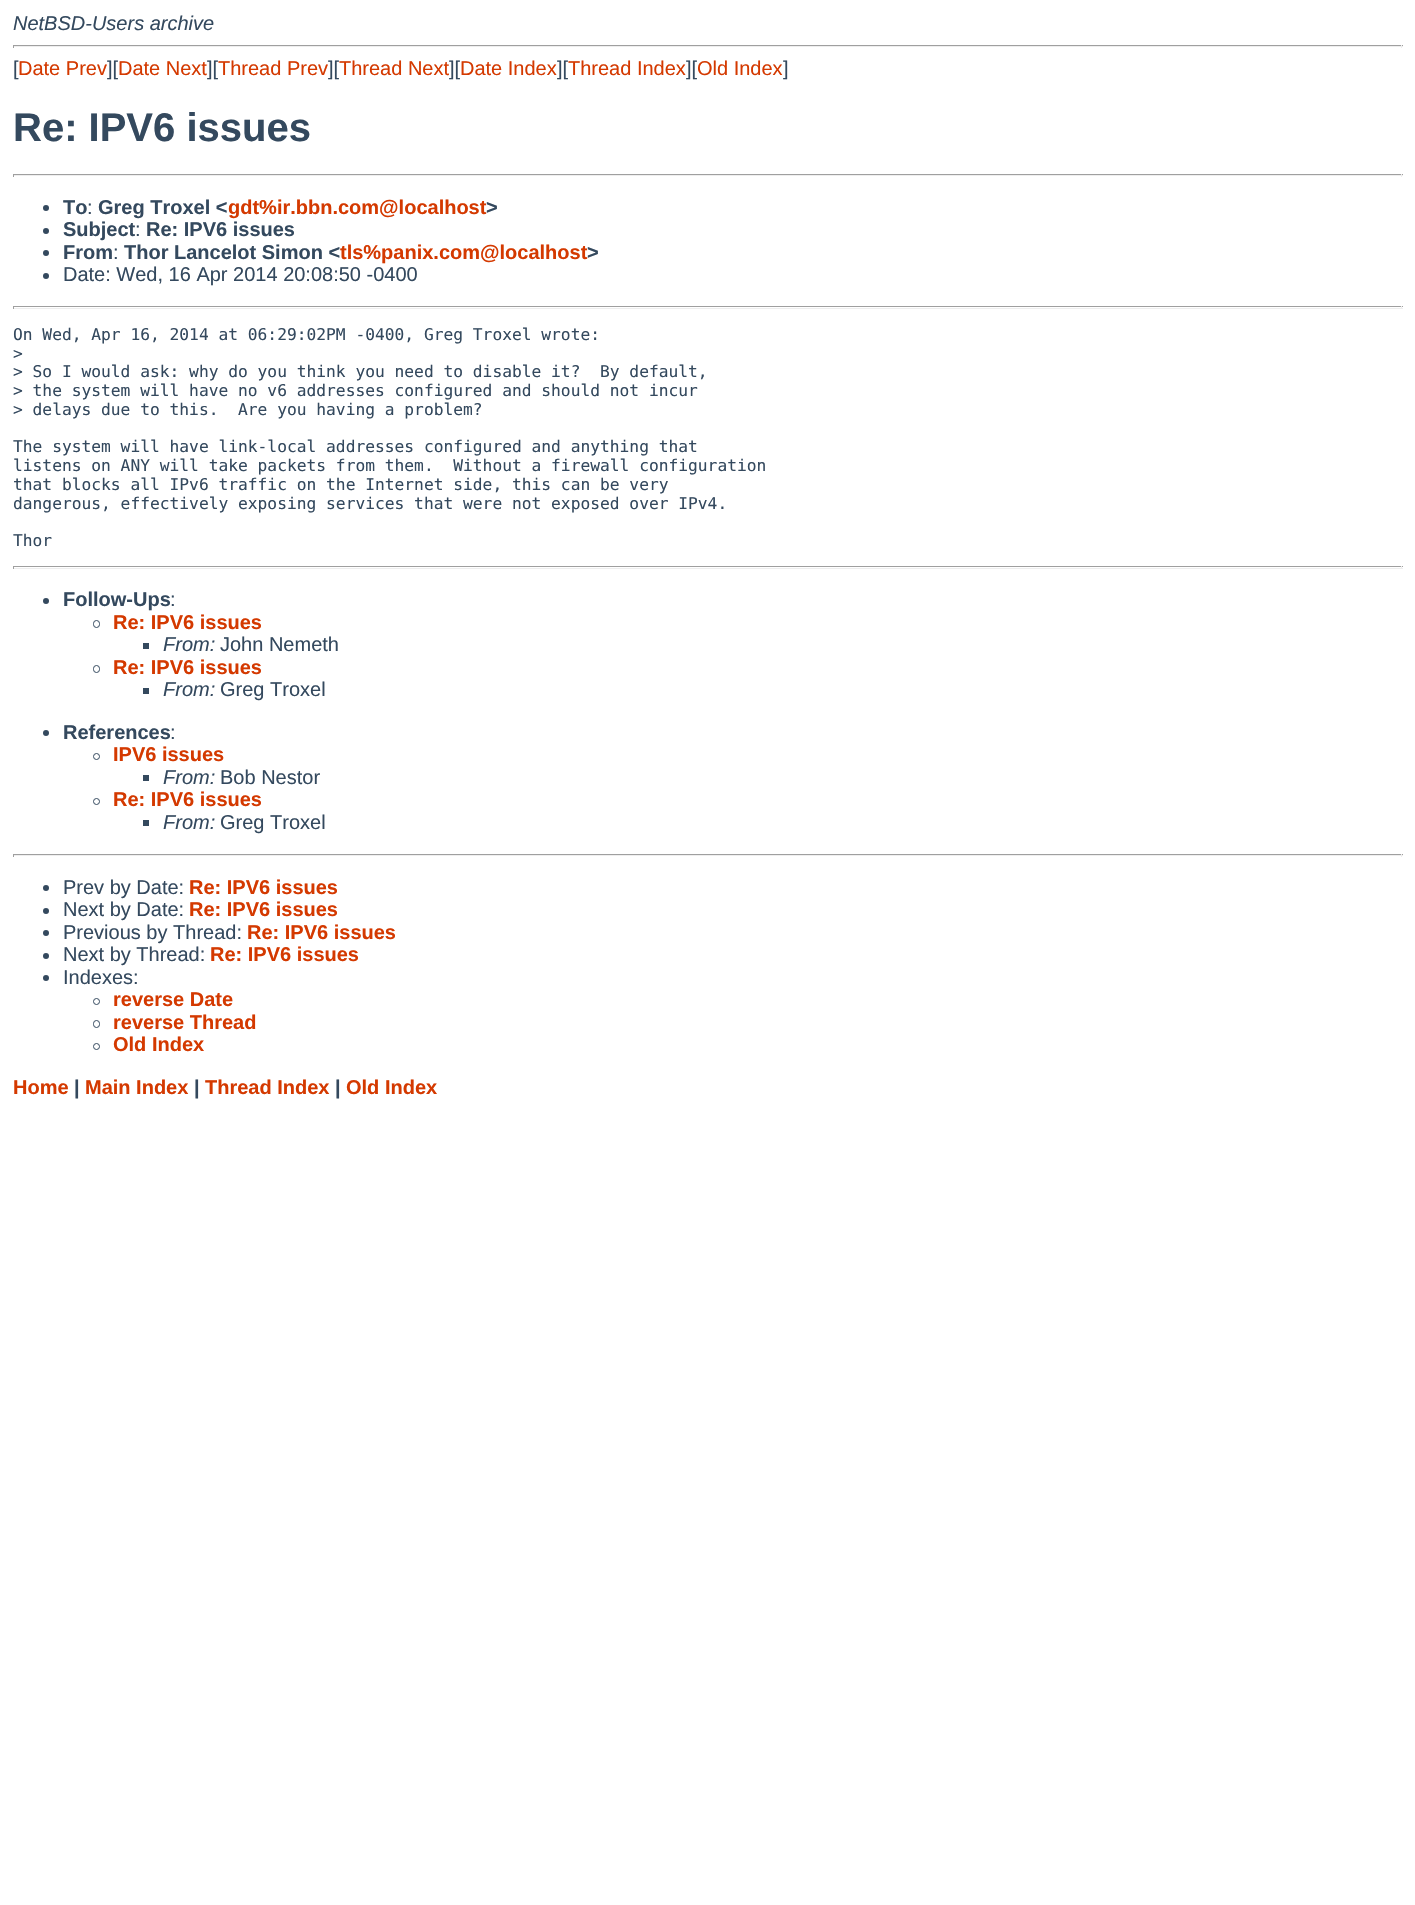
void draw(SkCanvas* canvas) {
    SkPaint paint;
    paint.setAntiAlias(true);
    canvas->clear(0xFFFFFFFF);
    SkFont font1(fontMgr->matchFamilyStyle("Liberation Sans", SkFontStyle::Italic()), 20);
    font1.setSubpixel(true);
    paint.setColor(0xFF34495E);
    canvas->drawString("NetBSD-Users archive", 13, 30, font1, paint);
    paint.setColor(0xFF9F9F9F);
    canvas->drawRect(SkRect::MakeXYWH(13, 45, 1390, 1), paint);
    paint.setColor(0xFFEEEEEE);
    canvas->drawRect(SkRect::MakeXYWH(1401, 45, 1, 3), paint);
    canvas->drawRect(SkRect::MakeXYWH(13, 46, 1390, 1), paint);
    paint.setColor(0xFF9F9F9F);
    canvas->drawRect(SkRect::MakeXYWH(13, 45, 1, 3), paint);
    SkFont font2(fontMgr->matchFamilyStyle("Liberation Sans", SkFontStyle::Normal()), 20);
    font2.setSubpixel(true);
    paint.setColor(0xFF34495E);
    canvas->drawString("[", 13, 75, font2, paint);
    paint.setColor(0xFFD43900);
    canvas->drawString("Date Prev", 18, 75, font2, paint);
    paint.setColor(0xFF34495E);
    canvas->drawString("][", 107, 75, font2, paint);
    paint.setColor(0xFFD43900);
    canvas->drawString("Date Next", 118, 75, font2, paint);
    paint.setColor(0xFF34495E);
    canvas->drawString("][", 207, 75, font2, paint);
    paint.setColor(0xFFD43900);
    canvas->drawString("Thread Prev", 218, 75, font2, paint);
    paint.setColor(0xFF34495E);
    canvas->drawString("][", 328, 75, font2, paint);
    paint.setColor(0xFFD43900);
    canvas->drawString("Thread Next", 339, 75, font2, paint);
    paint.setColor(0xFF34495E);
    canvas->drawString("][", 449, 75, font2, paint);
    paint.setColor(0xFFD43900);
    canvas->drawString("Date Index", 460, 75, font2, paint);
    paint.setColor(0xFF34495E);
    canvas->drawString("][", 557, 75, font2, paint);
    paint.setColor(0xFFD43900);
    canvas->drawString("Thread Index", 568, 75, font2, paint);
    paint.setColor(0xFF34495E);
    canvas->drawString("][", 686, 75, font2, paint);
    paint.setColor(0xFFD43900);
    canvas->drawString("Old Index", 697, 75, font2, paint);
    paint.setColor(0xFF34495E);
    canvas->drawString("]", 783, 75, font2, paint);
    SkFont font3(fontMgr->matchFamilyStyle("Liberation Sans", SkFontStyle::Bold()), 40);
    font3.setSubpixel(true);
    canvas->drawString("Re: IPV6 issues", 13, 141, font3, paint);
    paint.setColor(0xFF9F9F9F);
    canvas->drawRect(SkRect::MakeXYWH(13, 174, 1390, 1), paint);
    paint.setColor(0xFFEEEEEE);
    canvas->drawRect(SkRect::MakeXYWH(1401, 174, 1, 3), paint);
    canvas->drawRect(SkRect::MakeXYWH(13, 175, 1390, 1), paint);
    paint.setColor(0xFF9F9F9F);
    canvas->drawRect(SkRect::MakeXYWH(13, 174, 1, 3), paint);
    paint.setColor(0xFF34495E);
    canvas->drawCircle(46, 208, 3, paint);
    SkFont font4(fontMgr->matchFamilyStyle("Liberation Sans", SkFontStyle::Bold()), 20);
    font4.setSubpixel(true);
    canvas->drawString("To", 63, 214, font4, paint);
    canvas->drawString(":", 87, 214, font2, paint);
    canvas->drawString("Greg Troxel <", 98, 214, font4, paint);
    paint.setColor(0xFFD43900);
    canvas->drawString("gdt%ir.bbn.com@localhost", 228, 214, font4, paint);
    paint.setColor(0xFF34495E);
    canvas->drawString(">", 486, 214, font4, paint);
    canvas->drawCircle(46, 231, 3, paint);
    canvas->drawString("Subject", 63, 236, font4, paint);
    canvas->drawString(":", 135, 236, font2, paint);
    canvas->drawString("Re: IPV6 issues", 146, 236, font4, paint);
    canvas->drawCircle(46, 253, 3, paint);
    canvas->drawString("From", 63, 259, font4, paint);
    canvas->drawString(":", 113, 259, font2, paint);
    canvas->drawString("Thor Lancelot Simon <", 124, 259, font4, paint);
    paint.setColor(0xFFD43900);
    canvas->drawString("tls%panix.com@localhost", 340, 259, font4, paint);
    paint.setColor(0xFF34495E);
    canvas->drawString(">", 587, 259, font4, paint);
    canvas->drawCircle(46, 276, 3, paint);
    canvas->drawString("Date: Wed, 16 Apr 2014 20:08:50 -0400", 63, 281, font2, paint);
    paint.setColor(0xFF9F9F9F);
    canvas->drawRect(SkRect::MakeXYWH(13, 306, 1390, 1), paint);
    paint.setColor(0xFFEEEEEE);
    canvas->drawRect(SkRect::MakeXYWH(1401, 306, 1, 3), paint);
    canvas->drawRect(SkRect::MakeXYWH(13, 308, 1390, 1), paint);
    paint.setColor(0xFF9F9F9F);
    canvas->drawRect(SkRect::MakeXYWH(13, 306, 1, 3), paint);
    SkFont font5(fontMgr->matchFamilyStyle("DejaVu Sans Mono", SkFontStyle::Normal()), 16.25f);
    font5.setSubpixel(true);
    paint.setColor(0xFF34495E);
    canvas->drawString("On Wed, Apr 16, 2014 at 06:29:02PM -0400, Greg Troxel wrote:", 13, 340, font5, paint);
    canvas->drawString(">", 13, 359, font5, paint);
    canvas->drawString("> So I would ask: why do you think you need to disable it?  By default,", 13, 377, font5, paint);
    canvas->drawString("> the system will have no v6 addresses configured and should not incur", 13, 396, font5, paint);
    canvas->drawString("> delays due to this.  Are you having a problem?", 13, 415, font5, paint);
    canvas->drawString("The system will have link-local addresses configured and anything that", 13, 452, font5, paint);
    canvas->drawString("listens on ANY will take packets from them.  Without a firewall configuration", 13, 471, font5, paint);
    canvas->drawString("that blocks all IPv6 traffic on the Internet side, this can be very", 13, 490, font5, paint);
    canvas->drawString("dangerous, effectively exposing services that were not exposed over IPv4.", 13, 509, font5, paint);
    canvas->drawString("Thor", 13, 546, font5, paint);
    paint.setColor(0xFF9F9F9F);
    canvas->drawRect(SkRect::MakeXYWH(13, 566, 1390, 1), paint);
    paint.setColor(0xFFEEEEEE);
    canvas->drawRect(SkRect::MakeXYWH(1401, 566, 1, 3), paint);
    canvas->drawRect(SkRect::MakeXYWH(13, 568, 1390, 1), paint);
    paint.setColor(0xFF9F9F9F);
    canvas->drawRect(SkRect::MakeXYWH(13, 566, 1, 3), paint);
    paint.setColor(0xFF34495E);
    canvas->drawCircle(46, 601, 3, paint);
    canvas->drawString("Follow-Ups", 63, 606, font4, paint);
    canvas->drawString(":", 170, 606, font2, paint);
    paint.setStyle(SkPaint::kStroke_Style);
    paint.setStrokeWidth(1);
    canvas->drawRoundRect(SkRect::MakeXYWH(93.5f, 620.5f, 6, 7), 3, 3, paint);
    paint.setStyle(SkPaint::kFill_Style);
    paint.setColor(0xFFD43900);
    canvas->drawString("Re: IPV6 issues", 113, 629, font4, paint);
    paint.setColor(0xFF34495E);
    canvas->drawRect(SkRect::MakeXYWH(143, 643, 6, 6), paint);
    canvas->drawString("From:", 163, 651, font1, paint);
    canvas->drawString("John Nemeth", 220, 651, font2, paint);
    paint.setStyle(SkPaint::kStroke_Style);
    canvas->drawRoundRect(SkRect::MakeXYWH(93.5f, 665.5f, 6, 7), 3, 3, paint);
    paint.setStyle(SkPaint::kFill_Style);
    paint.setColor(0xFFD43900);
    canvas->drawString("Re: IPV6 issues", 113, 674, font4, paint);
    paint.setColor(0xFF34495E);
    canvas->drawRect(SkRect::MakeXYWH(143, 688, 6, 6), paint);
    canvas->drawString("From:", 163, 696, font1, paint);
    canvas->drawString("Greg Troxel", 220, 696, font2, paint);
    canvas->drawCircle(46, 733, 3, paint);
    canvas->drawString("References", 63, 739, font4, paint);
    canvas->drawString(":", 170, 739, font2, paint);
    paint.setStyle(SkPaint::kStroke_Style);
    canvas->drawCircle(96.5f, 756.5f, 3, paint);
    paint.setStyle(SkPaint::kFill_Style);
    paint.setColor(0xFFD43900);
    canvas->drawString("IPV6 issues", 113, 761, font4, paint);
    paint.setColor(0xFF34495E);
    canvas->drawRect(SkRect::MakeXYWH(143, 775, 6, 6), paint);
    canvas->drawString("From:", 163, 784, font1, paint);
    canvas->drawString("Bob Nestor", 220, 784, font2, paint);
    paint.setStyle(SkPaint::kStroke_Style);
    canvas->drawCircle(96.5f, 801.5f, 3, paint);
    paint.setStyle(SkPaint::kFill_Style);
    paint.setColor(0xFFD43900);
    canvas->drawString("Re: IPV6 issues", 113, 806, font4, paint);
    paint.setColor(0xFF34495E);
    canvas->drawRect(SkRect::MakeXYWH(143, 820, 6, 6), paint);
    canvas->drawString("From:", 163, 829, font1, paint);
    canvas->drawString("Greg Troxel", 220, 829, font2, paint);
    paint.setColor(0xFF9F9F9F);
    canvas->drawRect(SkRect::MakeXYWH(13, 854, 1390, 1), paint);
    paint.setColor(0xFFEEEEEE);
    canvas->drawRect(SkRect::MakeXYWH(1401, 854, 1, 3), paint);
    canvas->drawRect(SkRect::MakeXYWH(13, 855, 1390, 1), paint);
    paint.setColor(0xFF9F9F9F);
    canvas->drawRect(SkRect::MakeXYWH(13, 854, 1, 3), paint);
    paint.setColor(0xFF34495E);
    canvas->drawCircle(46, 888, 3, paint);
    canvas->drawString("Prev by Date:", 63, 894, font2, paint);
    paint.setColor(0xFFD43900);
    canvas->drawString("Re: IPV6 issues", 189, 894, font4, paint);
    paint.setColor(0xFF34495E);
    canvas->drawCircle(46, 911, 3, paint);
    canvas->drawString("Next by Date:", 63, 916, font2, paint);
    paint.setColor(0xFFD43900);
    canvas->drawString("Re: IPV6 issues", 189, 916, font4, paint);
    paint.setColor(0xFF34495E);
    canvas->drawCircle(46, 933, 3, paint);
    canvas->drawString("Previous by Thread:", 63, 939, font2, paint);
    paint.setColor(0xFFD43900);
    canvas->drawString("Re: IPV6 issues", 247, 939, font4, paint);
    paint.setColor(0xFF34495E);
    canvas->drawCircle(46, 956, 3, paint);
    canvas->drawString("Next by Thread:", 63, 961, font2, paint);
    paint.setColor(0xFFD43900);
    canvas->drawString("Re: IPV6 issues", 210, 961, font4, paint);
    paint.setColor(0xFF34495E);
    canvas->drawCircle(46, 978, 3, paint);
    canvas->drawString("Indexes:", 63, 984, font2, paint);
    paint.setStyle(SkPaint::kStroke_Style);
    canvas->drawCircle(96.5f, 1001.5f, 3, paint);
    paint.setStyle(SkPaint::kFill_Style);
    paint.setColor(0xFFD43900);
    canvas->drawString("reverse Date", 113, 1006, font4, paint);
    paint.setStyle(SkPaint::kStroke_Style);
    paint.setColor(0xFF34495E);
    canvas->drawRoundRect(SkRect::MakeXYWH(93.5f, 1020.5f, 6, 7), 3, 3, paint);
    paint.setStyle(SkPaint::kFill_Style);
    paint.setColor(0xFFD43900);
    canvas->drawString("reverse Thread", 113, 1029, font4, paint);
    paint.setStyle(SkPaint::kStroke_Style);
    paint.setColor(0xFF34495E);
    canvas->drawCircle(96.5f, 1046.5f, 3, paint);
    paint.setStyle(SkPaint::kFill_Style);
    paint.setColor(0xFFD43900);
    canvas->drawString("Old Index", 113, 1051, font4, paint);
    canvas->drawString("Home", 13, 1094, font4, paint);
    paint.setColor(0xFF34495E);
    canvas->drawString("|", 74, 1094, font4, paint);
    paint.setColor(0xFFD43900);
    canvas->drawString("Main Index", 85, 1094, font4, paint);
    paint.setColor(0xFF34495E);
    canvas->drawString("|", 194, 1094, font4, paint);
    paint.setColor(0xFFD43900);
    canvas->drawString("Thread Index", 205, 1094, font4, paint);
    paint.setColor(0xFF34495E);
    canvas->drawString("|", 335, 1094, font4, paint);
    paint.setColor(0xFFD43900);
    canvas->drawString("Old Index", 346, 1094, font4, paint);
}
